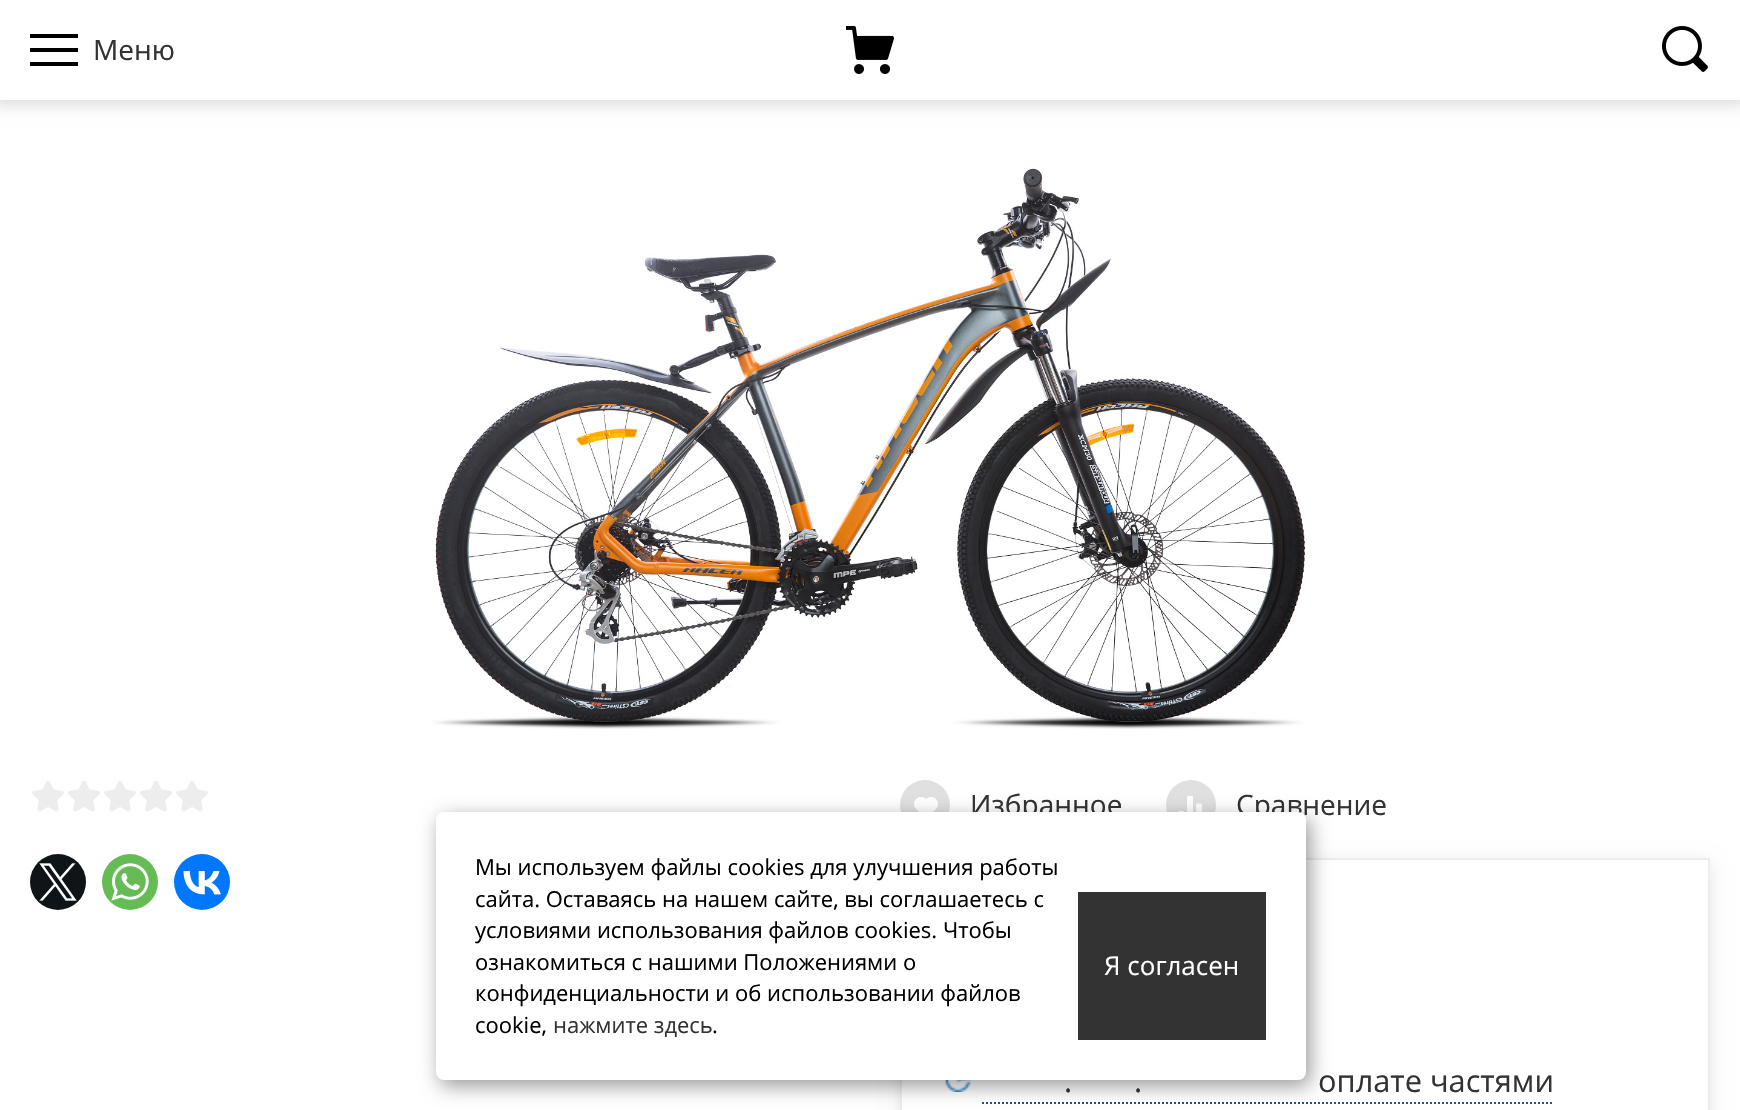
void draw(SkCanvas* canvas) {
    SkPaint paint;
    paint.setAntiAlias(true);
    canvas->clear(0xFFFFFFFF);
    paint.setColor(0x26000000);
    paint.setMaskFilter(SkMaskFilter::MakeBlur(kNormal_SkBlurStyle, 8));
    canvas->drawRect(SkRect::MakeXYWH(-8, -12, 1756, 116), paint);
    paint.setMaskFilter(nullptr);
    paint.setColor(0xFFFFFFFF);
    canvas->drawRect(SkRect::MakeXYWH(0, 0, 1740, 100), paint);
    paint.setColor(0xFF000000);
    canvas->drawPath(SkPathBuilder().moveTo(30, 36).lineTo(30, 38).lineTo(78, 38).lineTo(78, 34).lineTo(30, 34).close().moveTo(30, 50).lineTo(30, 52).lineTo(78, 52).lineTo(78, 48).lineTo(30, 48).close().moveTo(30, 64).lineTo(30, 66).lineTo(78, 66).lineTo(78, 62).lineTo(30, 62).close().detach(), paint);
    SkFont font1(fontMgr->matchFamilyStyle("Open Sans", SkFontStyle::Normal()), 28);
    font1.setSubpixel(true);
    paint.setColor(0xFF333333);
    canvas->drawString("Меню", 93, 60, font1, paint);
    canvas->drawImageRect(SkImages::DeferredFromEncodedData(SkData::MakeFromFileName("img1.png")), SkRect::MakeXYWH(846, 26, 48, 48), SkSamplingOptions());
    canvas->drawImageRect(SkImages::DeferredFromEncodedData(SkData::MakeFromFileName("img2.png")), SkRect::MakeXYWH(1662, 26, 46, 46), SkSamplingOptions());
    canvas->drawImageRect(SkImages::DeferredFromEncodedData(SkData::MakeFromFileName("img3.png")), SkRect::MakeXYWH(433, 167, 874, 562), SkSamplingOptions());
    canvas->drawImageRect(SkImages::DeferredFromEncodedData(SkData::MakeFromFileName("img4.png")), SkRect::MakeXYWH(32, 781, 32, 31), SkSamplingOptions());
    canvas->drawImageRect(SkImages::DeferredFromEncodedData(SkData::MakeFromFileName("img4.png")), SkRect::MakeXYWH(68, 781, 32, 31), SkSamplingOptions());
    canvas->drawImageRect(SkImages::DeferredFromEncodedData(SkData::MakeFromFileName("img4.png")), SkRect::MakeXYWH(104, 781, 32, 31), SkSamplingOptions());
    canvas->drawImageRect(SkImages::DeferredFromEncodedData(SkData::MakeFromFileName("img4.png")), SkRect::MakeXYWH(140, 781, 32, 31), SkSamplingOptions());
    canvas->drawImageRect(SkImages::DeferredFromEncodedData(SkData::MakeFromFileName("img4.png")), SkRect::MakeXYWH(176, 781, 32, 31), SkSamplingOptions());
    paint.setColor(0xFF0F1419);
    canvas->drawCircle(58, 882, 28, paint);
    canvas->drawImageRect(SkImages::DeferredFromEncodedData(SkData::MakeFromFileName("img5.png")), SkRect::MakeXYWH(39, 863, 38, 38), SkSamplingOptions());
    paint.setColor(0xFF65BC54);
    canvas->drawCircle(130, 882, 28, paint);
    canvas->drawImageRect(SkImages::DeferredFromEncodedData(SkData::MakeFromFileName("img6.png")), SkRect::MakeXYWH(111, 863, 38, 38), SkSamplingOptions());
    paint.setColor(0xFF0077FF);
    canvas->drawCircle(202, 882, 28, paint);
    canvas->drawImageRect(SkImages::DeferredFromEncodedData(SkData::MakeFromFileName("img7.png")), SkRect::MakeXYWH(183, 871, 38, 24), SkSamplingOptions());
    paint.setColor(0xFFE0E0E0);
    canvas->drawCircle(925, 805, 25, paint);
    canvas->drawImageRect(SkImages::DeferredFromEncodedData(SkData::MakeFromFileName("img8.png")), SkRect::MakeXYWH(914, 797, 24, 15), SkSamplingOptions());
    paint.setColor(0xFF333333);
    canvas->drawString("Избранное", 970, 815, font1, paint);
    paint.setColor(0xFFE0E0E0);
    canvas->drawCircle(1191, 805, 25, paint);
    canvas->drawImageRect(SkImages::DeferredFromEncodedData(SkData::MakeFromFileName("img9.png")), SkRect::MakeXYWH(1178, 796, 24, 16), SkSamplingOptions());
    paint.setColor(0xFF333333);
    canvas->drawString("Сравнение", 1236, 815, font1, paint);
    canvas->save();
    canvas->clipPath(SkPathBuilder(SkPathFillType::kEvenOdd).moveTo(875, 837).lineTo(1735, 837).lineTo(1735, 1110).lineTo(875, 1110).close().moveTo(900, 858).lineTo(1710, 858).lineTo(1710, 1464).lineTo(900, 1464).close().detach(), true);
    paint.setColor(0x1A000000);
    paint.setMaskFilter(SkMaskFilter::MakeBlur(kNormal_SkBlurStyle, 8));
    canvas->drawRect(SkRect::MakeXYWH(900, 862, 810, 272), paint);
    paint.setMaskFilter(nullptr);
    canvas->restore();
    paint.setStyle(SkPaint::kStroke_Style);
    paint.setStrokeWidth(2);
    paint.setColor(0xFFEDEDED);
    canvas->drawRect(SkRect::MakeXYWH(901, 859, 808, 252), paint);
    canvas->drawImageRect(SkImages::DeferredFromEncodedData(SkData::MakeFromFileName("img10.png")), SkRect::MakeXYWH(945, 1080, 27, 12), SkSamplingOptions());
    SkFont font2(fontMgr->matchFamilyStyle("Open Sans", SkFontStyle::Normal()), 30.75f);
    font2.setSubpixel(true);
    paint.setStyle(SkPaint::kFill_Style);
    paint.setColor(0xFF333333);
    canvas->drawString(".", 1064, 1092, font2, paint);
    paint.setStyle(SkPaint::kStroke_Style);
    paint.setColor(0xFF23527C);
    paint.setPathEffect(SkDashPathEffect::Make({{2, 2}}, 0));
    canvas->drawPath(SkPathBuilder().moveTo(982, 1103).lineTo(1554, 1103).detach(), paint);
    paint.setPathEffect(nullptr);
    paint.setStyle(SkPaint::kFill_Style);
    paint.setColor(0xFF333333);
    canvas->drawString(".", 1134, 1092, font2, paint);
    canvas->drawString("оплате частями", 1318, 1092, font2, paint);
    paint.setColor(0x66000000);
    paint.setMaskFilter(SkMaskFilter::MakeBlur(kNormal_SkBlurStyle, 10));
    canvas->drawRoundRect(SkRect::MakeXYWH(440, 818, 870, 268), 8, 8, paint);
    paint.setMaskFilter(nullptr);
    paint.setColor(0xFFFFFFFF);
    canvas->drawRoundRect(SkRect::MakeXYWH(436, 812, 870, 268), 8, 8, paint);
    SkFont font3(fontMgr->matchFamilyStyle("Open Sans", SkFontStyle::Normal()), 22);
    font3.setSubpixel(true);
    paint.setColor(0xFF000000);
    canvas->drawString("Мы используем файлы cookies для улучшения работы", 475, 875, font3, paint);
    canvas->drawString("сайта. Оставаясь на нашем сайте, вы соглашаетесь с", 475, 907, font3, paint);
    canvas->drawString("условиями использования файлов cookies. Чтобы", 475, 938, font3, paint);
    canvas->drawString("ознакомиться с нашими Положениями о", 475, 970, font3, paint);
    canvas->drawString("конфиденциальности и об использовании файлов", 475, 1001, font3, paint);
    canvas->drawString("cookie,", 475, 1033, font3, paint);
    paint.setColor(0xFF333333);
    canvas->drawString("нажмите здесь", 553, 1033, font3, paint);
    paint.setColor(0xFF000000);
    canvas->drawString(".", 712, 1033, font3, paint);
    paint.setColor(0xFF333333);
    canvas->drawRect(SkRect::MakeXYWH(1078, 892, 188, 148), paint);
    SkFont font4(fontMgr->matchFamilyStyle("Open Sans", SkFontStyle::Normal()), 26);
    font4.setSubpixel(true);
    paint.setColor(0xFFFFFFFF);
    canvas->drawString("Я согласен", 1104, 975, font4, paint);
}
